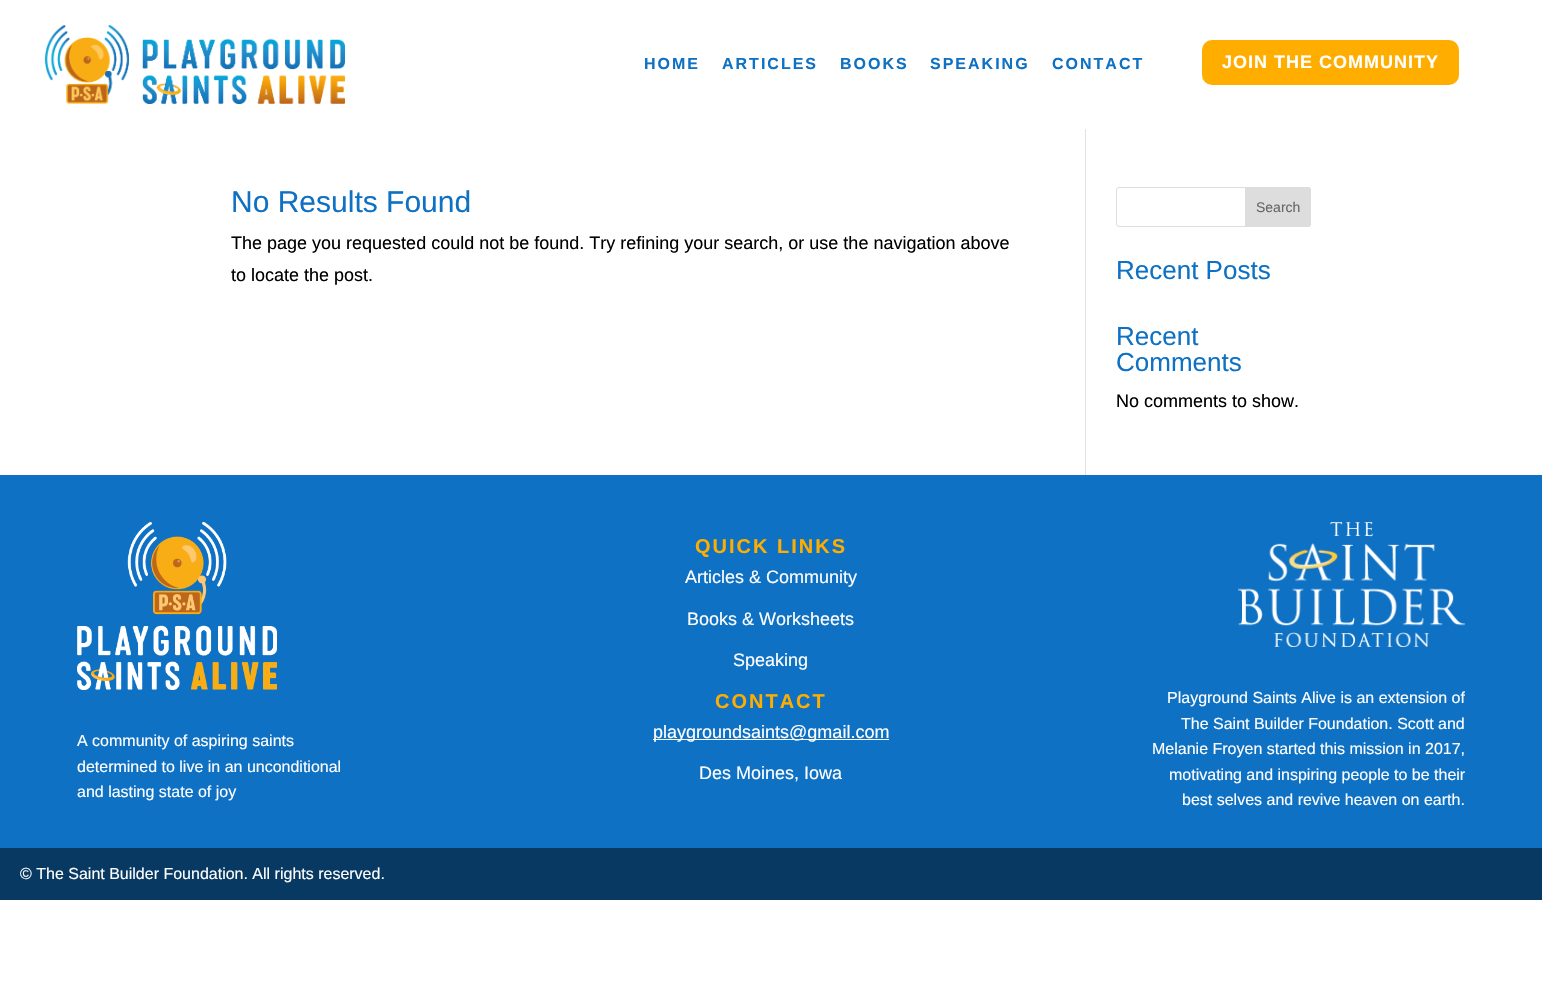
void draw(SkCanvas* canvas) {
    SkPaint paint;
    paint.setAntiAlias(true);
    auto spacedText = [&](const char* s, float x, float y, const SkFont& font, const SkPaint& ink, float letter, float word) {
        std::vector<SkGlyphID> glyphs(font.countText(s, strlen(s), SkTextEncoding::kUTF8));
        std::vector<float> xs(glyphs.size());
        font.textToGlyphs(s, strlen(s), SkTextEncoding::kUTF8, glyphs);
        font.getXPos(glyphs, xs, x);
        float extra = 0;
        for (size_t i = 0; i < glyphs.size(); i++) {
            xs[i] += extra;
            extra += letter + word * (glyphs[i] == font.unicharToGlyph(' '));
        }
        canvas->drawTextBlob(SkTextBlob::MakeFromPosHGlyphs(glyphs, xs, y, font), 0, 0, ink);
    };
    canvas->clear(0xFFFFFFFF);
    canvas->drawImageRect(SkImages::DeferredFromEncodedData(SkData::MakeFromFileName("img1.png")), SkRect::MakeXYWH(45, 25, 300, 79), SkSamplingOptions());
    SkFont font1(fontMgr->matchFamilyStyle("Liberation Sans", SkFontStyle::Bold()), 16);
    font1.setSubpixel(true);
    paint.setColor(0xFF0E71C3);
    spacedText("HOME", 644, 69, font1, paint, 2, 0);
    spacedText("ARTICLES", 722, 69, font1, paint, 2, 0);
    spacedText("BOOKS", 840, 69, font1, paint, 2, 0);
    spacedText("SPEAKING", 930, 69, font1, paint, 2, 0);
    spacedText("CONTACT", 1052, 69, font1, paint, 2, 0);
    paint.setColor(0xFFFFAE00);
    canvas->drawRoundRect(SkRect::MakeXYWH(1203, 41, 255, 43), 9, 9, paint);
    paint.setStyle(SkPaint::kStroke_Style);
    paint.setStrokeWidth(2);
    canvas->drawRoundRect(SkRect::MakeXYWH(1203, 41, 255, 43), 9, 9, paint);
    SkFont font2(fontMgr->matchFamilyStyle("Liberation Sans", SkFontStyle::Bold()), 18);
    font2.setSubpixel(true);
    paint.setStyle(SkPaint::kFill_Style);
    paint.setColor(0xFFFFFFFF);
    spacedText("JOIN THE COMMUNITY", 1222, 68, font2, paint, 1, 0);
    paint.setColor(0xFFE2E2E2);
    canvas->drawRect(SkRect::MakeXYWH(1085, 129, 1, 346), paint);
    SkFont font3(fontMgr->matchFamilyStyle("Liberation Sans", SkFontStyle::Normal()), 30);
    font3.setSubpixel(true);
    paint.setColor(0xFF0E71C3);
    canvas->drawString("No Results Found", 231, 212, font3, paint);
    SkFont font4(fontMgr->matchFamilyStyle("Liberation Sans", SkFontStyle::Normal()), 18);
    font4.setSubpixel(true);
    paint.setColor(0xFF000000);
    canvas->drawString("The page you requested could not be found. Try refining your search, or use the navigation above", 231, 249, font4, paint);
    canvas->drawString("to locate the post.", 231, 281, font4, paint);
    paint.setStyle(SkPaint::kStroke_Style);
    paint.setStrokeWidth(1);
    paint.setColor(0xFFDDDDDD);
    canvas->drawRoundRect(SkRect::MakeXYWH(1116.5f, 187.5f, 194, 39), 2.5f, 2.5f, paint);
    paint.setStyle(SkPaint::kFill_Style);
    canvas->drawPath(SkPathBuilder().moveTo(1245.5f, 187.5f).lineTo(1308, 187.5f).cubicTo(1309.5f, 187.5f, 1310.5f, 188.5f, 1310.5f, 190).lineTo(1310.5f, 224).cubicTo(1310.5f, 225.5f, 1309.5f, 226.5f, 1308, 226.5f).lineTo(1245.5f, 226.5f).close().detach(), paint);
    paint.setStyle(SkPaint::kStroke_Style);
    canvas->drawPath(SkPathBuilder().moveTo(1245.5f, 187.5f).lineTo(1308, 187.5f).cubicTo(1309.5f, 187.5f, 1310.5f, 188.5f, 1310.5f, 190).lineTo(1310.5f, 224).cubicTo(1310.5f, 225.5f, 1309.5f, 226.5f, 1308, 226.5f).lineTo(1245.5f, 226.5f).close().detach(), paint);
    SkFont font5(fontMgr->matchFamilyStyle("Liberation Sans", SkFontStyle::Normal()), 14);
    font5.setSubpixel(true);
    paint.setStyle(SkPaint::kFill_Style);
    paint.setColor(0xFF666666);
    canvas->drawString("Search", 1256, 212, font5, paint);
    SkFont font6(fontMgr->matchFamilyStyle("Liberation Sans", SkFontStyle::Normal()), 26);
    font6.setSubpixel(true);
    paint.setColor(0xFF0E71C3);
    canvas->drawString("Recent Posts", 1116, 279, font6, paint);
    canvas->drawString("Recent", 1116, 345, font6, paint);
    canvas->drawString("Comments", 1116, 371, font6, paint);
    paint.setColor(0xFF000000);
    canvas->drawString("No comments to show.", 1116, 407, font4, paint);
    paint.setColor(0xFF0E71C3);
    canvas->drawRect(SkRect::MakeXYWH(0, 475, 1542, 373), paint);
    canvas->drawImageRect(SkImages::DeferredFromEncodedData(SkData::MakeFromFileName("img2.png")), SkRect::MakeXYWH(77, 522, 200, 168), SkSamplingOptions());
    SkFont font7(fontMgr->matchFamilyStyle("Liberation Sans", SkFontStyle::Normal()), 16);
    font7.setSubpixel(true);
    paint.setColor(0xFFFFFFFF);
    canvas->drawString("A community of aspiring saints", 77, 746, font7, paint);
    canvas->drawString("determined to live in an unconditional", 77, 772, font7, paint);
    canvas->drawString("and lasting state of joy", 77, 797, font7, paint);
    SkFont font8(fontMgr->matchFamilyStyle("Liberation Sans", SkFontStyle::Bold()), 20);
    font8.setSubpixel(true);
    paint.setColor(0xFFFFAE00);
    spacedText("QUICK LINKS", 695, 553, font8, paint, 2, 0);
    paint.setColor(0xFFFFFFFF);
    canvas->drawString("Articles & Community", 685, 583, font4, paint);
    canvas->drawString("Books & Worksheets", 687, 625, font4, paint);
    canvas->drawString("Speaking", 733, 666, font4, paint);
    paint.setColor(0xFFFFAE00);
    spacedText("CONTACT", 715, 708, font8, paint, 2, 0);
    paint.setColor(0xFFFFFFFF);
    canvas->drawRect(SkRect::MakeXYWH(653, 739, 236, 1), paint);
    canvas->drawString("playgroundsaints@gmail.com", 653, 738, font4, paint);
    canvas->drawString("Des Moines, Iowa", 699, 779, font4, paint);
    canvas->drawImageRect(SkImages::DeferredFromEncodedData(SkData::MakeFromFileName("img3.png")), SkRect::MakeXYWH(1238, 522, 227, 125), SkSamplingOptions());
    canvas->drawString("Playground Saints Alive is an extension of", 1167, 703, font7, paint);
    canvas->drawString("The Saint Builder Foundation. Scott and", 1181, 729, font7, paint);
    canvas->drawString("Melanie Froyen started this mission in 2017,", 1152, 754, font7, paint);
    canvas->drawString("motivating and inspiring people to be their", 1169, 780, font7, paint);
    canvas->drawString("best selves and revive heaven on earth.", 1182, 805, font7, paint);
    paint.setColor(0xFF073962);
    canvas->drawRect(SkRect::MakeXYWH(0, 848, 1542, 52), paint);
    paint.setColor(0xFFFFFFFF);
    canvas->drawString("© The Saint Builder Foundation. All rights reserved.", 20, 879, font7, paint);
}
